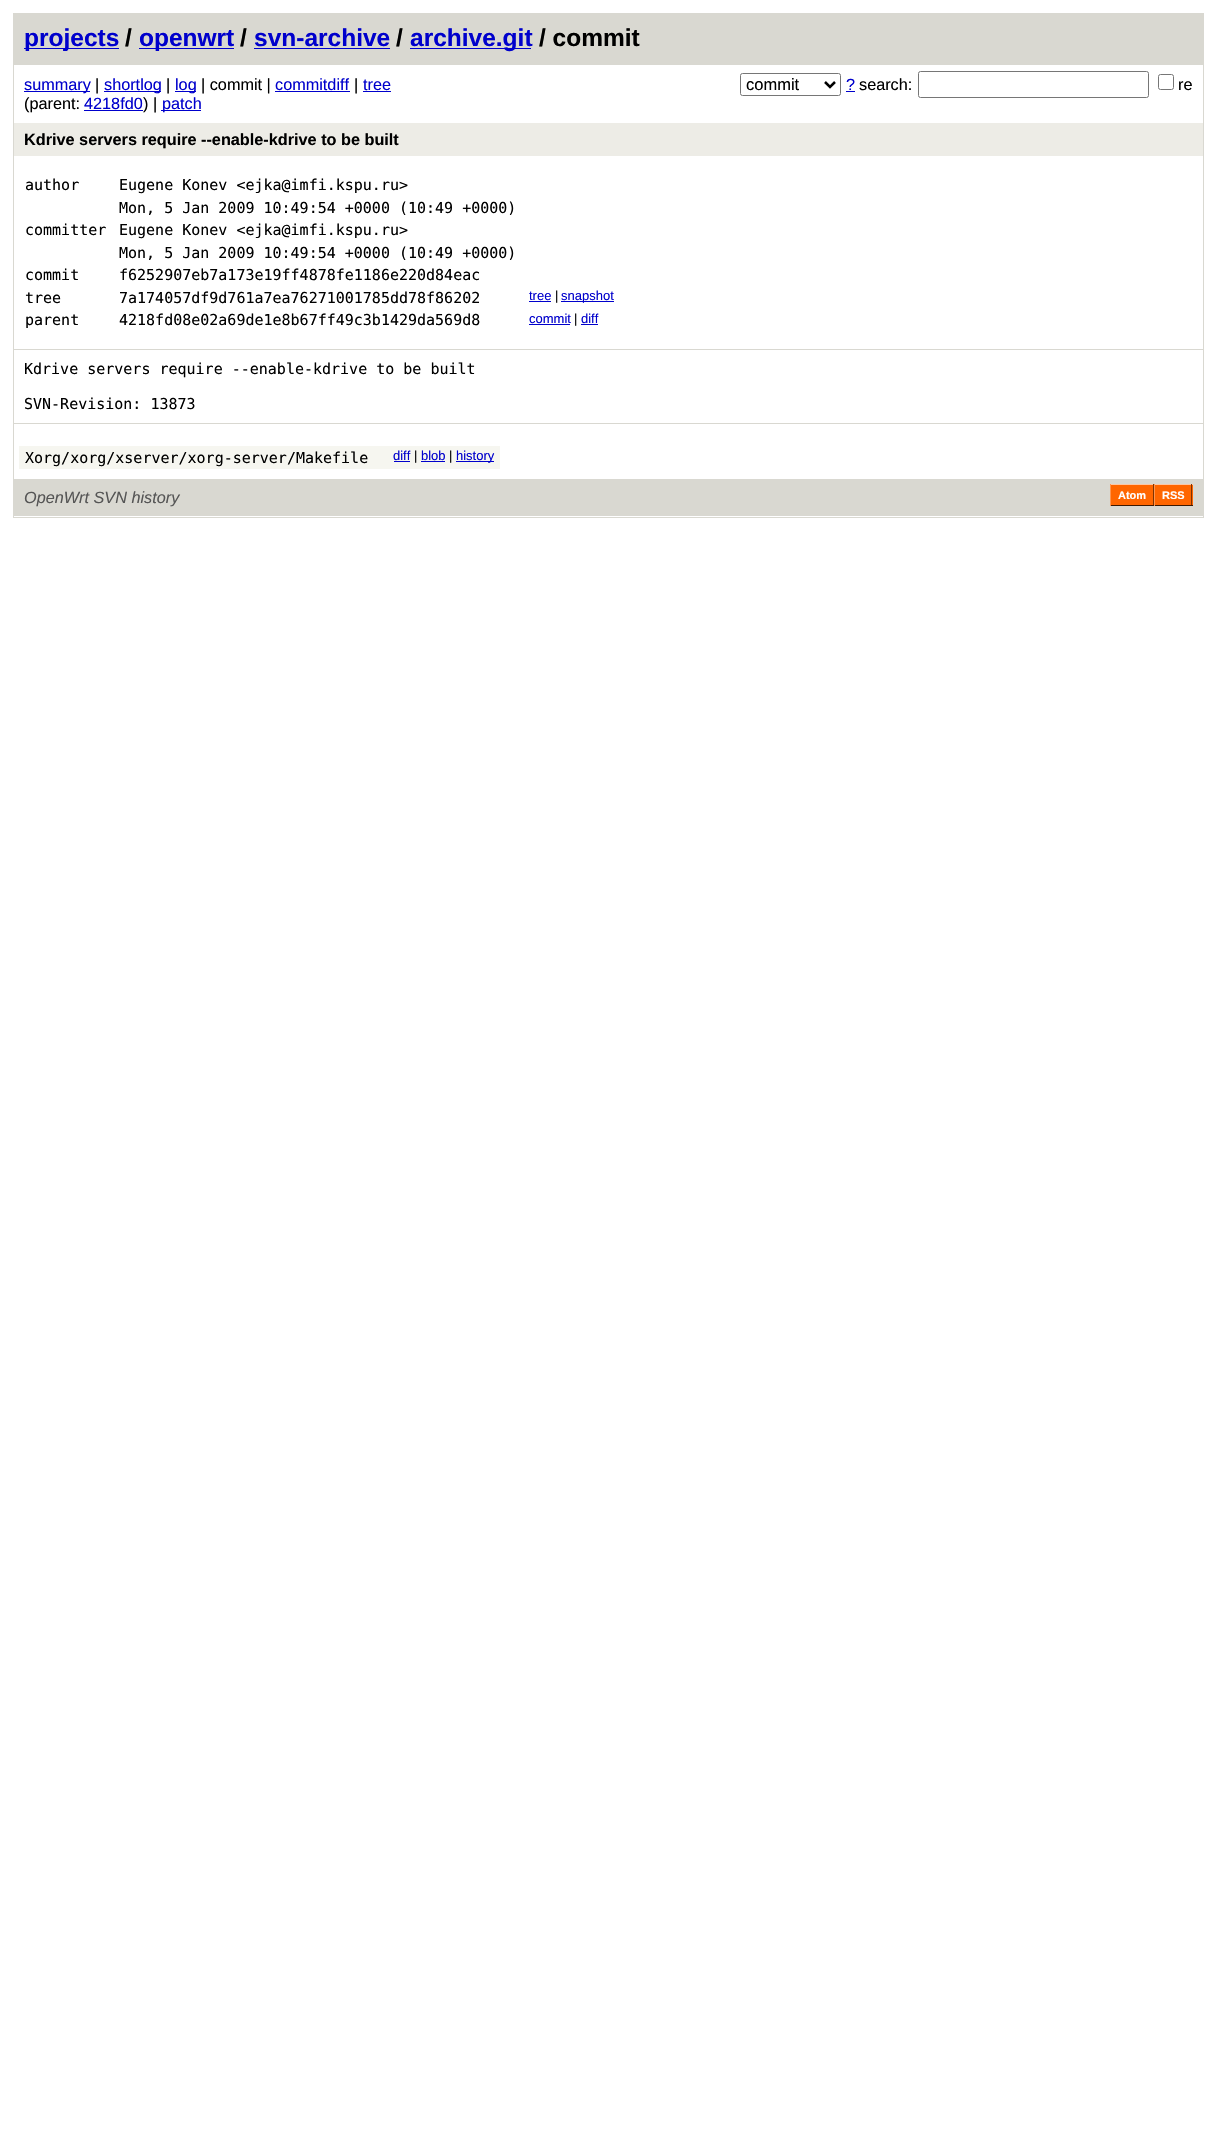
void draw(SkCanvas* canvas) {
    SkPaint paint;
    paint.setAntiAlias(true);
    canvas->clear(0xFFFFFFFF);
    paint.setStyle(SkPaint::kStroke_Style);
    paint.setStrokeWidth(1);
    paint.setColor(0xFFD9D8D1);
    canvas->drawRect(SkRect::MakeXYWH(13.5f, 13.5f, 1190, 504), paint);
    paint.setStyle(SkPaint::kFill_Style);
    canvas->drawRect(SkRect::MakeXYWH(14, 14, 1189, 51), paint);
    paint.setColor(0xFF0000CC);
    canvas->drawRect(SkRect::MakeXYWH(24, 48, 95, 1), paint);
    SkFont font1(fontMgr->matchFamilyStyle("Liberation Sans", SkFontStyle::Bold()), 24.5f);
    font1.setSubpixel(true);
    canvas->drawString("projects", 24, 46, font1, paint);
    paint.setColor(0xFF000000);
    canvas->drawString("/", 125, 46, font1, paint);
    paint.setColor(0xFF0000CC);
    canvas->drawRect(SkRect::MakeXYWH(139, 48, 95, 1), paint);
    canvas->drawString("openwrt", 139, 46, font1, paint);
    paint.setColor(0xFF000000);
    canvas->drawString("/", 240, 46, font1, paint);
    paint.setColor(0xFF0000CC);
    canvas->drawString("svn-archive", 254, 46, font1, paint);
    canvas->drawRect(SkRect::MakeXYWH(254, 48, 136, 1), paint);
    paint.setColor(0xFF000000);
    canvas->drawString("/", 396, 46, font1, paint);
    paint.setColor(0xFF0000CC);
    canvas->drawRect(SkRect::MakeXYWH(410, 48, 121, 1), paint);
    canvas->drawString("archive.git", 410, 46, font1, paint);
    paint.setColor(0xFF000000);
    canvas->drawString("/ commit", 539, 46, font1, paint);
    paint.setColor(0xFF0000CC);
    canvas->drawRect(SkRect::MakeXYWH(24, 91, 66, 1), paint);
    SkFont font2(fontMgr->matchFamilyStyle("Liberation Sans", SkFontStyle::Normal()), 16.25f);
    font2.setSubpixel(true);
    canvas->drawString("summary", 24, 90, font2, paint);
    paint.setColor(0xFF000000);
    canvas->drawString("|", 95, 90, font2, paint);
    paint.setColor(0xFF0000CC);
    canvas->drawRect(SkRect::MakeXYWH(104, 91, 57, 1), paint);
    canvas->drawString("shortlog", 104, 90, font2, paint);
    paint.setColor(0xFF000000);
    canvas->drawString("|", 166, 90, font2, paint);
    paint.setColor(0xFF0000CC);
    canvas->drawRect(SkRect::MakeXYWH(175, 91, 21, 1), paint);
    canvas->drawString("log", 175, 90, font2, paint);
    paint.setColor(0xFF000000);
    canvas->drawString("| commit |", 201, 90, font2, paint);
    paint.setColor(0xFF0000CC);
    canvas->drawString("commitdiff", 275, 90, font2, paint);
    canvas->drawRect(SkRect::MakeXYWH(275, 91, 75, 1), paint);
    paint.setColor(0xFF000000);
    canvas->drawString("|", 354, 90, font2, paint);
    paint.setColor(0xFF0000CC);
    canvas->drawString("tree", 363, 90, font2, paint);
    canvas->drawRect(SkRect::MakeXYWH(363, 91, 28, 1), paint);
    paint.setColor(0xFF000000);
    canvas->drawString("(parent:", 24, 109, font2, paint);
    paint.setColor(0xFF0000CC);
    canvas->drawString("4218fd0", 84, 109, font2, paint);
    canvas->drawRect(SkRect::MakeXYWH(84, 110, 59, 1), paint);
    paint.setColor(0xFF000000);
    canvas->drawString(") |", 143, 109, font2, paint);
    paint.setColor(0xFF0000CC);
    canvas->drawRect(SkRect::MakeXYWH(161, 110, 40, 1), paint);
    canvas->drawString("patch", 162, 109, font2, paint);
    paint.setStyle(SkPaint::kStroke_Style);
    paint.setColor(0xFF767676);
    canvas->drawRoundRect(SkRect::MakeXYWH(740.5f, 73.5f, 100, 22), 2, 2, paint);
    paint.setStrokeWidth(2.5f);
    paint.setColor(0xFF000000);
    canvas->drawPath(SkPathBuilder().moveTo(825, 82).lineTo(830, 87).lineTo(835, 82).detach(), paint);
    SkFont font3(fontMgr->matchFamilyStyle("Liberation Sans", SkFontStyle::Normal()), 16.5f);
    font3.setSubpixel(true);
    paint.setStyle(SkPaint::kFill_Style);
    canvas->drawString("commit", 746, 90, font3, paint);
    paint.setColor(0xFF0000CC);
    canvas->drawString("?", 846, 90, font2, paint);
    canvas->drawRect(SkRect::MakeXYWH(846, 91, 9, 1), paint);
    paint.setColor(0xFF000000);
    canvas->drawString("search:", 859, 90, font2, paint);
    paint.setStyle(SkPaint::kStroke_Style);
    paint.setStrokeWidth(1);
    paint.setColor(0xFF767676);
    canvas->drawRoundRect(SkRect::MakeXYWH(918.5f, 71.5f, 230, 26), 2, 2, paint);
    canvas->drawRoundRect(SkRect::MakeXYWH(1158.5f, 74.5f, 15, 15), 2, 2, paint);
    paint.setStyle(SkPaint::kFill_Style);
    paint.setColor(0xFF000000);
    canvas->drawString("re", 1178, 90, font2, paint);
    paint.setColor(0xFFEDECE6);
    canvas->drawRect(SkRect::MakeXYWH(14, 123, 1189, 33), paint);
    SkFont font4(fontMgr->matchFamilyStyle("Liberation Sans", SkFontStyle::Bold()), 16.25f);
    font4.setSubpixel(true);
    paint.setColor(0xFF000000);
    canvas->drawString("Kdrive servers require --enable-kdrive to be built", 24, 145, font4, paint);
    paint.setColor(0xFFD9D8D1);
    canvas->drawRect(SkRect::MakeXYWH(14, 349, 1189, 1), paint);
    SkFont font5(fontMgr->matchFamilyStyle("DejaVu Sans Mono", SkFontStyle::Normal()), 15);
    font5.setSubpixel(true);
    paint.setColor(0xFF000000);
    canvas->drawString("author", 25, 190, font5, paint);
    canvas->drawString("Eugene Konev <ejka@imfi.kspu.ru>", 119, 190, font5, paint);
    canvas->drawString("Mon, 5 Jan 2009 10:49:54 +0000 (10:49 +0000)", 119, 213, font5, paint);
    canvas->drawString("committer", 25, 235, font5, paint);
    canvas->drawString("Eugene Konev <ejka@imfi.kspu.ru>", 119, 235, font5, paint);
    canvas->drawString("Mon, 5 Jan 2009 10:49:54 +0000 (10:49 +0000)", 119, 258, font5, paint);
    canvas->drawString("commit", 25, 280, font5, paint);
    canvas->drawString("f6252907eb7a173e19ff4878fe1186e220d84eac", 119, 280, font5, paint);
    canvas->drawString("tree", 25, 303, font5, paint);
    canvas->drawString("7a174057df9d761a7ea76271001785dd78f86202", 119, 303, font5, paint);
    SkFont font6(fontMgr->matchFamilyStyle("Liberation Sans", SkFontStyle::Normal()), 13);
    font6.setSubpixel(true);
    paint.setColor(0xFF0000CC);
    canvas->drawString("tree", 529, 300, font6, paint);
    canvas->drawRect(SkRect::MakeXYWH(529, 301, 22, 1), paint);
    paint.setColor(0xFF000000);
    canvas->drawString("|", 555, 300, font6, paint);
    paint.setColor(0xFF0000CC);
    canvas->drawRect(SkRect::MakeXYWH(561, 301, 53, 1), paint);
    canvas->drawString("snapshot", 561, 300, font6, paint);
    paint.setColor(0xFF000000);
    canvas->drawString("parent", 25, 325, font5, paint);
    canvas->drawString("4218fd08e02a69de1e8b67ff49c3b1429da569d8", 119, 325, font5, paint);
    paint.setColor(0xFF0000CC);
    canvas->drawString("commit", 529, 323, font6, paint);
    canvas->drawRect(SkRect::MakeXYWH(529, 324, 41, 1), paint);
    paint.setColor(0xFF000000);
    canvas->drawString("|", 574, 323, font6, paint);
    paint.setColor(0xFF0000CC);
    canvas->drawString("diff", 581, 323, font6, paint);
    canvas->drawRect(SkRect::MakeXYWH(581, 324, 17, 1), paint);
    paint.setColor(0xFF000000);
    canvas->drawString("Kdrive servers require --enable-kdrive to be built", 24, 374, font5, paint);
    canvas->drawString("SVN-Revision: 13873", 24, 409, font5, paint);
    paint.setColor(0xFFD9D8D1);
    canvas->drawRect(SkRect::MakeXYWH(14, 423, 1189, 1), paint);
    paint.setColor(0xFFF6F6F0);
    canvas->drawRect(SkRect::MakeXYWH(19, 446, 481, 23), paint);
    paint.setColor(0xFF000000);
    canvas->drawString("Xorg/xorg/xserver/xorg-server/Makefile", 25, 463, font5, paint);
    paint.setColor(0xFF0000CC);
    canvas->drawString("diff", 393, 460, font6, paint);
    canvas->drawRect(SkRect::MakeXYWH(394, 461, 16, 1), paint);
    paint.setColor(0xFF000000);
    canvas->drawString("|", 414, 460, font6, paint);
    paint.setColor(0xFF0000CC);
    canvas->drawString("blob", 421, 460, font6, paint);
    canvas->drawRect(SkRect::MakeXYWH(421, 461, 24, 1), paint);
    paint.setColor(0xFF000000);
    canvas->drawString("|", 449, 460, font6, paint);
    paint.setColor(0xFF0000CC);
    canvas->drawRect(SkRect::MakeXYWH(456, 461, 38, 1), paint);
    canvas->drawString("history", 456, 460, font6, paint);
    paint.setColor(0xFFD9D8D1);
    canvas->drawRect(SkRect::MakeXYWH(14, 479, 1189, 37), paint);
    SkFont font7(fontMgr->matchFamilyStyle("Liberation Sans", SkFontStyle::Italic()), 16.25f);
    font7.setSubpixel(true);
    paint.setColor(0xFF555555);
    canvas->drawString("OpenWrt SVN history", 24, 503, font7, paint);
    paint.setColor(0xFFFF6600);
    canvas->drawRect(SkRect::MakeXYWH(1111, 485, 42, 20), paint);
    paint.setColor(0xFFFCC7A5);
    canvas->drawRect(SkRect::MakeXYWH(1110, 484, 83, 1), paint);
    paint.setColor(0xFF7D3302);
    canvas->drawRect(SkRect::MakeXYWH(1153, 484, 1, 22), paint);
    paint.setColor(0xFF3E1A01);
    canvas->drawRect(SkRect::MakeXYWH(1110, 505, 44, 1), paint);
    paint.setColor(0xFFFF954E);
    canvas->drawRect(SkRect::MakeXYWH(1110, 484, 1, 22), paint);
    SkFont font8(fontMgr->matchFamilyStyle("Liberation Sans", SkFontStyle::Bold()), 11);
    font8.setSubpixel(true);
    paint.setColor(0xFFFFFFFF);
    canvas->drawString("Atom", 1118, 499, font8, paint);
    paint.setColor(0xFFFF6600);
    canvas->drawRect(SkRect::MakeXYWH(1155, 485, 38, 20), paint);
    paint.setColor(0xFF7D3302);
    canvas->drawRect(SkRect::MakeXYWH(1191, 484, 1, 22), paint);
    paint.setColor(0xFF3E1A01);
    canvas->drawRect(SkRect::MakeXYWH(1154, 505, 39, 1), paint);
    paint.setColor(0xFFFF954E);
    canvas->drawRect(SkRect::MakeXYWH(1154, 484, 1, 22), paint);
    paint.setColor(0xFFFFFFFF);
    canvas->drawString("RSS", 1162, 499, font8, paint);
}
